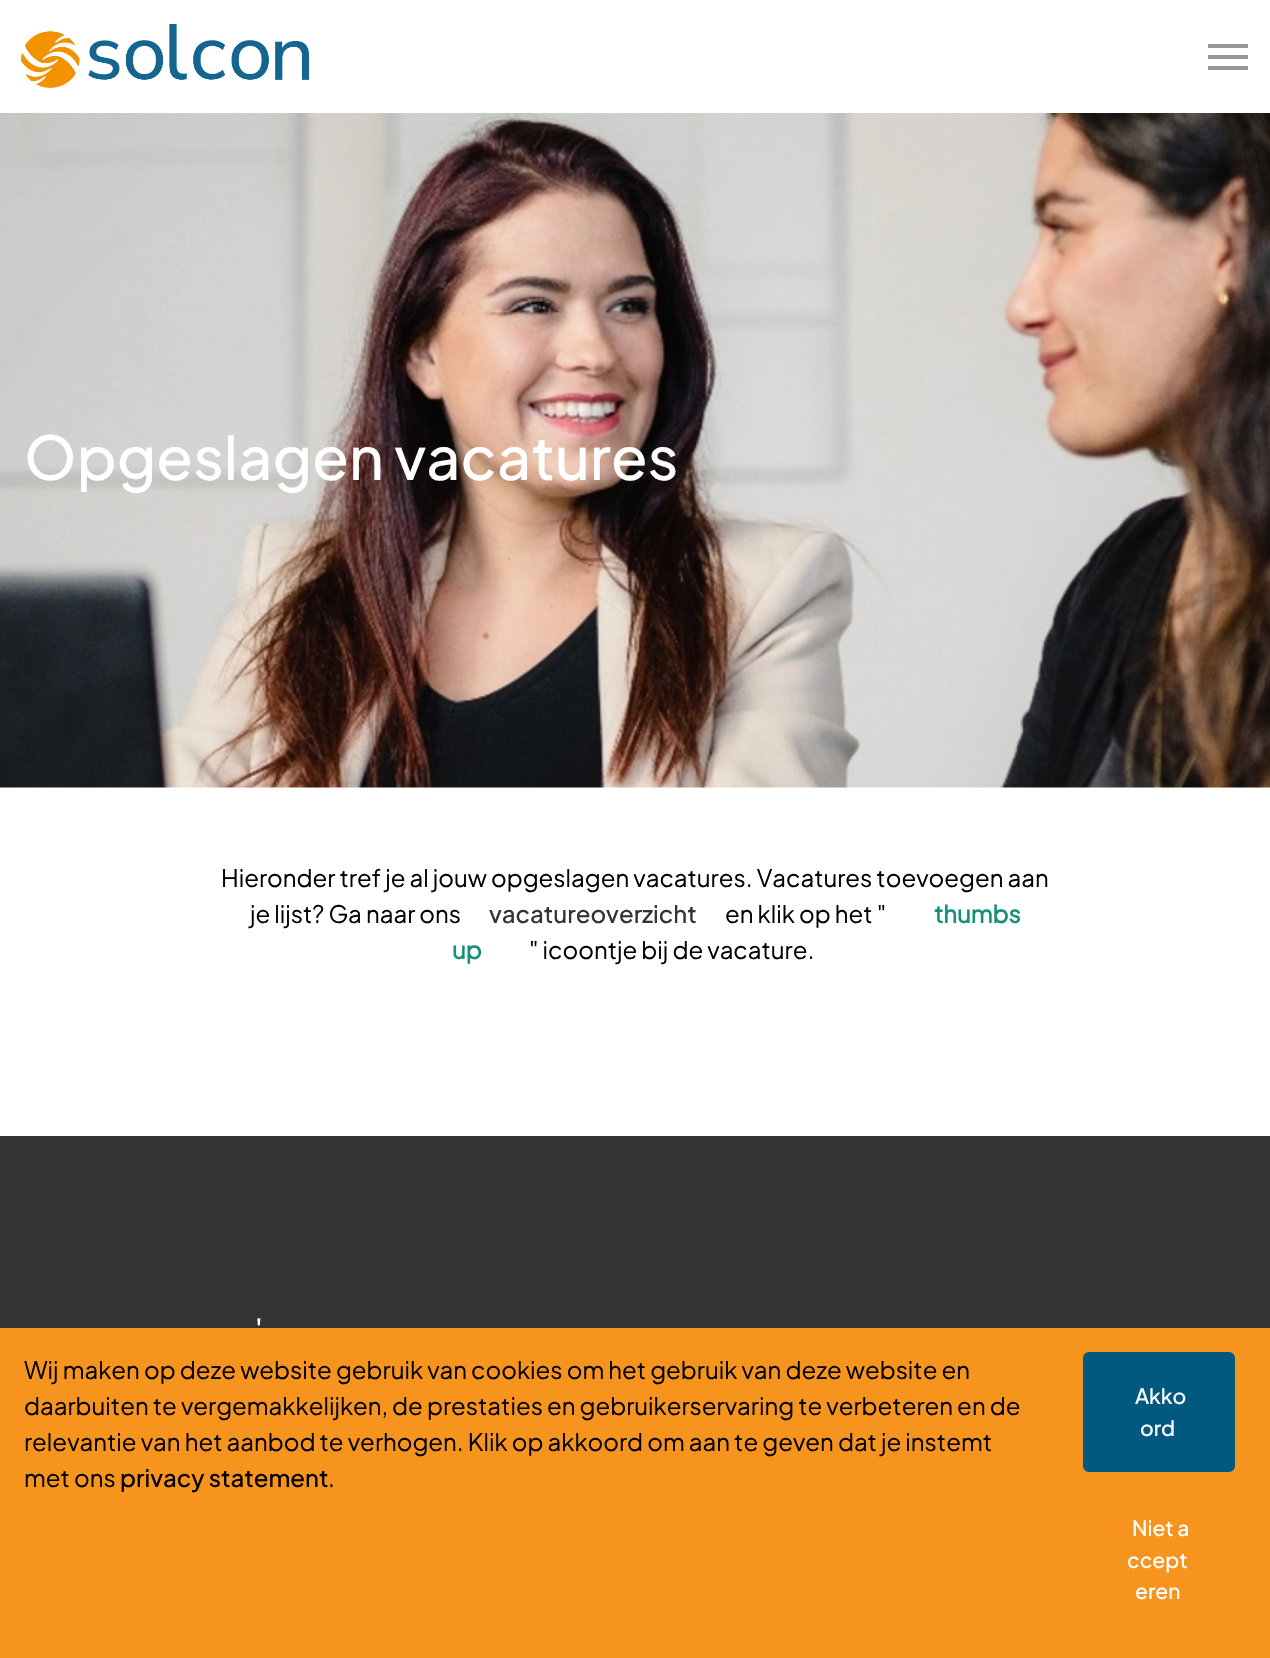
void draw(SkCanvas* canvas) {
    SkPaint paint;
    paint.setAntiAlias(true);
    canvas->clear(0xFFFFFFFF);
    canvas->drawImageRect(SkImages::DeferredFromEncodedData(SkData::MakeFromFileName("img1.png")), SkRect::MakeXYWH(21, 24, 288, 64), SkSamplingOptions());
    paint.setColor(0xFF979797);
    canvas->drawRect(SkRect::MakeXYWH(1208, 44, 40, 4), paint);
    canvas->drawRect(SkRect::MakeXYWH(1208, 55, 40, 4), paint);
    canvas->drawRect(SkRect::MakeXYWH(1208, 66, 40, 4), paint);
    canvas->drawImageRect(SkImages::DeferredFromEncodedData(SkData::MakeFromFileName("img2.png")), SkRect::MakeXYWH(0, 113, 1270, 675), SkSamplingOptions());
    SkFont font1(fontMgr->matchFamilyStyle("Plus Jakarta Sans", SkFontStyle(500, SkFontStyle::kNormal_Width, SkFontStyle::kUpright_Slant)), 60);
    font1.setSubpixel(true);
    paint.setColor(0xFFFFFFFF);
    canvas->drawString("Opgeslagen vacatures", 24, 480, font1, paint);
    SkFont font2(fontMgr->matchFamilyStyle("Plus Jakarta Sans", SkFontStyle::Normal()), 24);
    font2.setSubpixel(true);
    paint.setColor(0xFF000000);
    canvas->drawString("Hieronder tref je al jouw opgeslagen vacatures. Vacatures toevoegen aan", 221, 887, font2, paint);
    canvas->drawString("je lijst? Ga naar ons", 250, 923, font2, paint);
    SkFont font3(fontMgr->matchFamilyStyle("Plus Jakarta Sans", SkFontStyle(500, SkFontStyle::kNormal_Width, SkFontStyle::kUpright_Slant)), 24);
    font3.setSubpixel(true);
    paint.setColor(0xFF333333);
    canvas->drawString("vacatureoverzicht", 489, 923, font3, paint);
    paint.setColor(0xFF000000);
    canvas->drawString("en klik op het \"", 725, 923, font2, paint);
    SkFont font4(fontMgr->matchFamilyStyle("Plus Jakarta Sans", SkFontStyle::Bold()), 24);
    font4.setSubpixel(true);
    paint.setColor(0xFF169179);
    canvas->drawString("thumbs", 934, 923, font4, paint);
    canvas->drawString("up", 452, 959, font4, paint);
    paint.setColor(0xFF000000);
    canvas->drawString("\" icoontje bij de vacature.", 529, 959, font2, paint);
    paint.setColor(0xFF333333);
    canvas->drawRect(SkRect::MakeXYWH(0, 1136, 1270, 192), paint);
    SkFont font5(fontMgr->matchFamilyStyle("Plus Jakarta Sans", SkFontStyle(500, SkFontStyle::kNormal_Width, SkFontStyle::kUpright_Slant)), 29);
    font5.setSubpixel(true);
    paint.setColor(0xFFFFFFFF);
    canvas->drawString("'", 255, 1340, font5, paint);
    paint.setColor(0xFFF7941E);
    canvas->drawRect(SkRect::MakeXYWH(0, 1328, 1270, 330), paint);
    paint.setColor(0xFF000000);
    canvas->drawString("Wij maken op deze website gebruik van cookies om het gebruik van deze website en", 24, 1379, font2, paint);
    canvas->drawString("daarbuiten te vergemakkelijken, de prestaties en gebruikerservaring te verbeteren en de", 24, 1415, font2, paint);
    canvas->drawString("relevantie van het aanbod te verhogen. Klik op akkoord om aan te geven dat je instemt", 24, 1451, font2, paint);
    canvas->drawString("met ons", 24, 1487, font2, paint);
    canvas->drawString("privacy statement", 120, 1487, font3, paint);
    canvas->drawString(".", 328, 1487, font2, paint);
    paint.setColor(0xFF015980);
    canvas->drawRoundRect(SkRect::MakeXYWH(1085.5f, 1354.5f, 147, 115), 3.5f, 3.5f, paint);
    paint.setStyle(SkPaint::kStroke_Style);
    paint.setStrokeWidth(5);
    canvas->drawRoundRect(SkRect::MakeXYWH(1085.5f, 1354.5f, 147, 115), 3.5f, 3.5f, paint);
    SkFont font6(fontMgr->matchFamilyStyle("Plus Jakarta Sans", SkFontStyle(500, SkFontStyle::kNormal_Width, SkFontStyle::kUpright_Slant)), 21);
    font6.setSubpixel(true);
    paint.setStyle(SkPaint::kFill_Style);
    paint.setColor(0xFFFFFFFF);
    canvas->drawString("Akko", 1135, 1404, font6, paint);
    canvas->drawString("ord", 1140, 1436, font6, paint);
    canvas->drawString("Niet a", 1132, 1536, font6, paint);
    canvas->drawString("ccept", 1127, 1568, font6, paint);
    canvas->drawString("eren", 1135, 1599, font6, paint);
}
